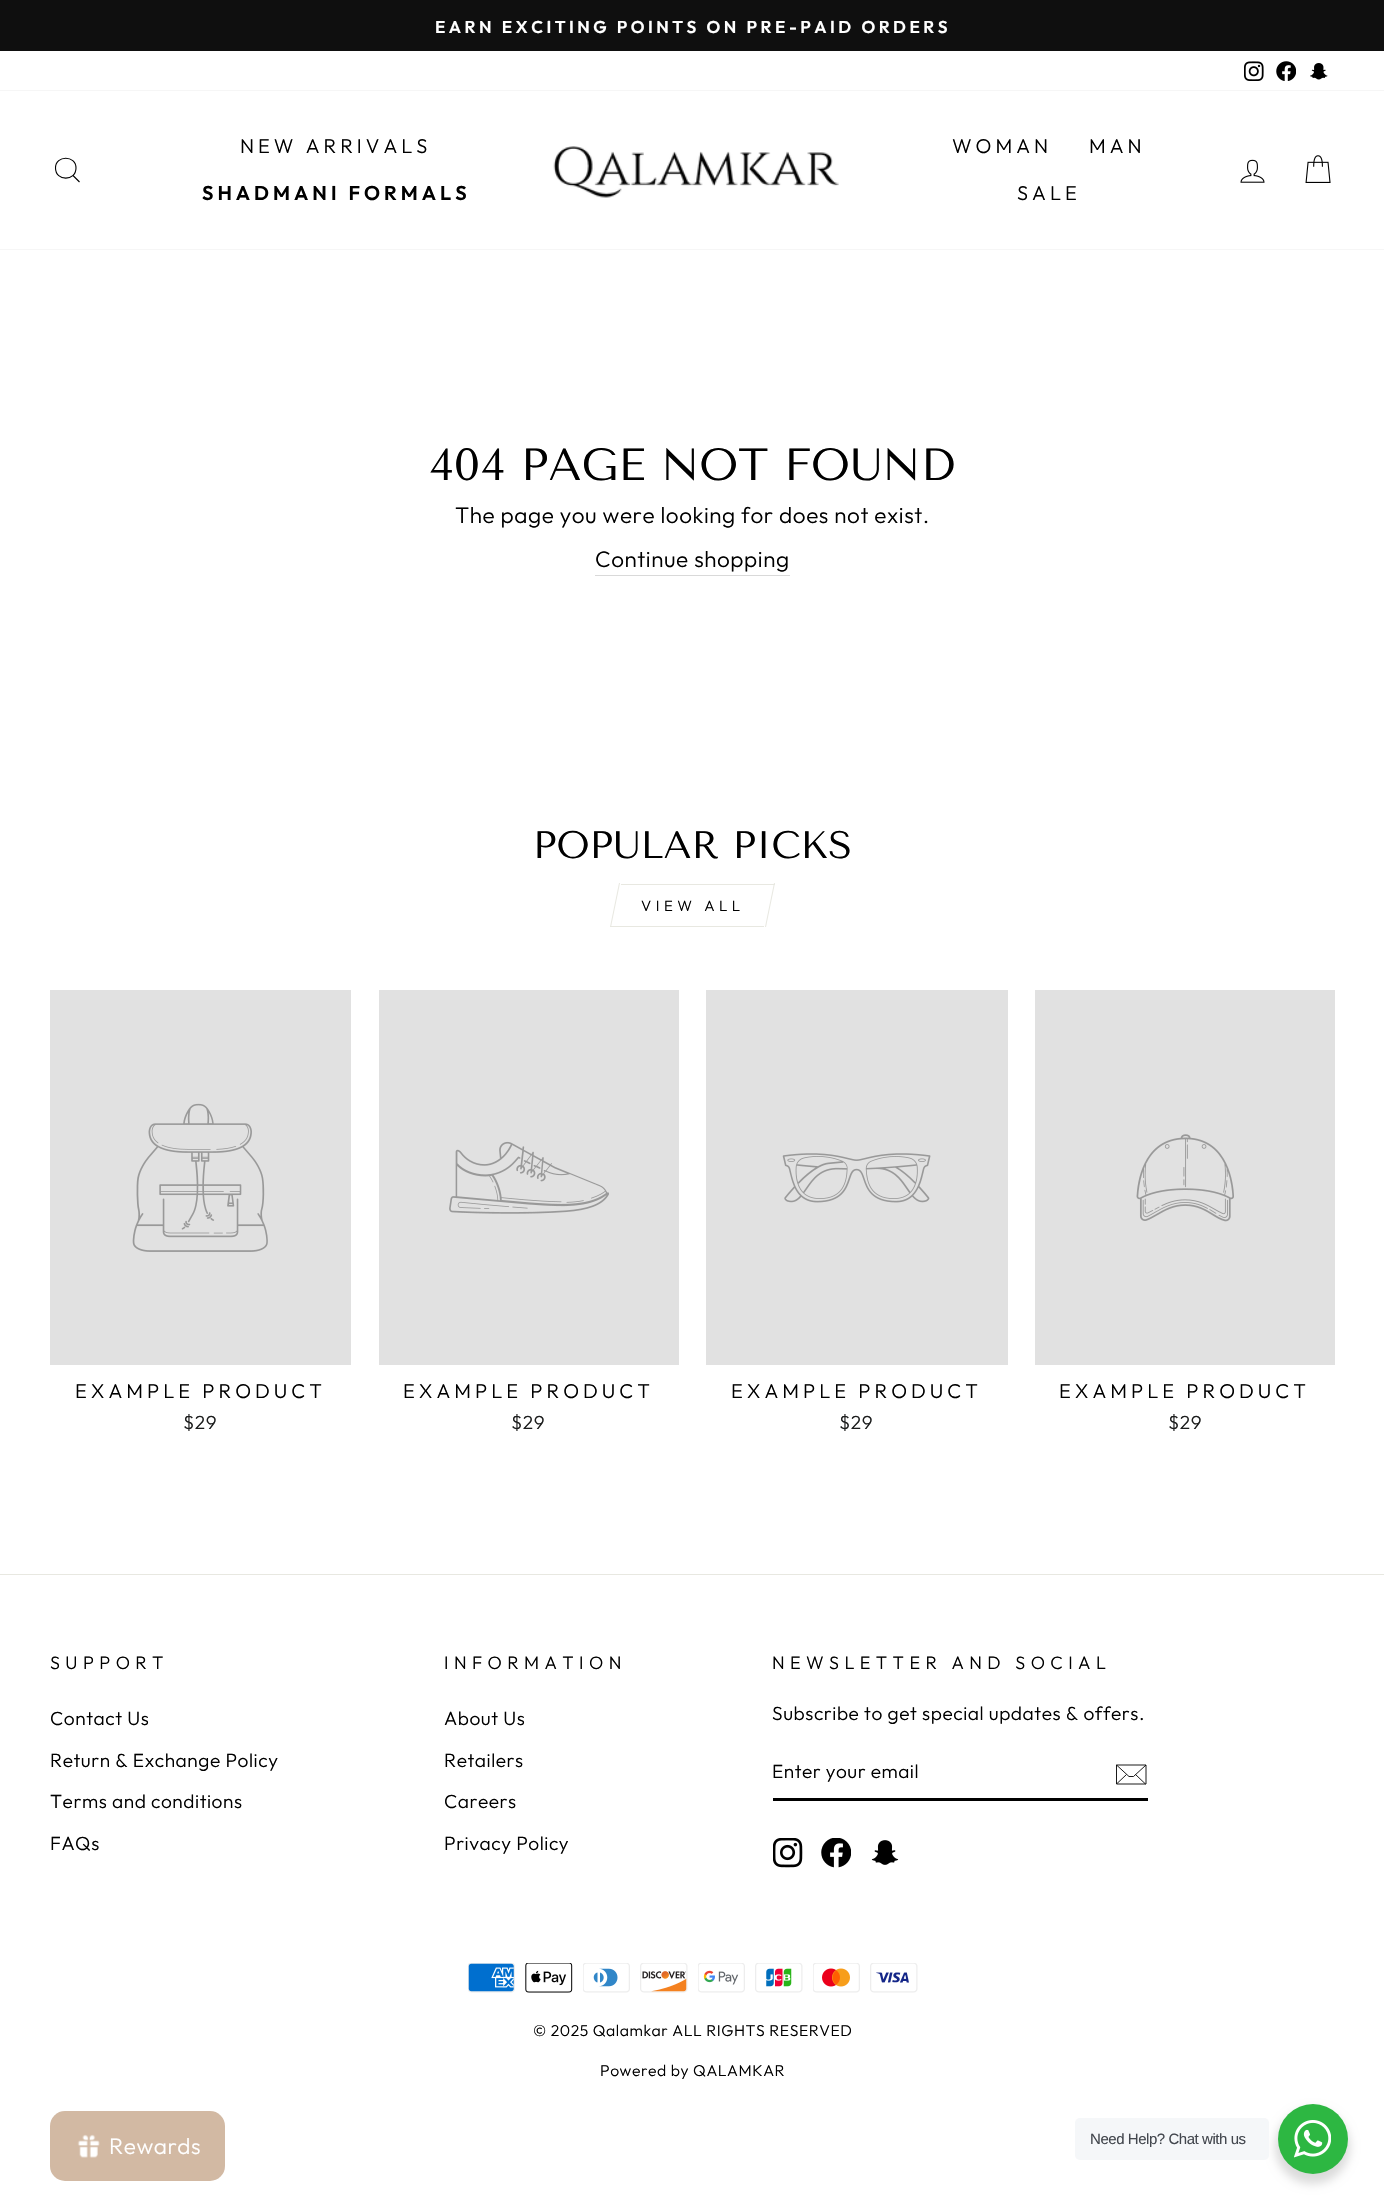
void draw(SkCanvas* canvas) {
    SkPaint paint;
    paint.setAntiAlias(true);
    auto spacedText = [&](const char* s, float x, float y, const SkFont& font, const SkPaint& ink, float letter, float word) {
        std::vector<SkGlyphID> glyphs(font.countText(s, strlen(s), SkTextEncoding::kUTF8));
        std::vector<float> xs(glyphs.size());
        font.textToGlyphs(s, strlen(s), SkTextEncoding::kUTF8, glyphs);
        font.getXPos(glyphs, xs, x);
        float extra = 0;
        for (size_t i = 0; i < glyphs.size(); i++) {
            xs[i] += extra;
            extra += letter + word * (glyphs[i] == font.unicharToGlyph(' '));
        }
        canvas->drawTextBlob(SkTextBlob::MakeFromPosHGlyphs(glyphs, xs, y, font), 0, 0, ink);
    };
    canvas->clear(0xFFFFFFFF);
    paint.setColor(0xFF0F0F0F);
    canvas->drawRect(SkRect::MakeXYWH(0, 0, 1384, 51), paint);
    SkFont font1(fontMgr->matchFamilyStyle("Outfit", SkFontStyle(600, SkFontStyle::kNormal_Width, SkFontStyle::kUpright_Slant)), 17.2f);
    font1.setSubpixel(true);
    paint.setColor(0xFFFFFFFF);
    spacedText("EARN EXCITING POINTS ON PRE-PAID ORDERS", 435, 33, font1, paint, 3.45f, 0);
    canvas->drawImageRect(SkImages::DeferredFromEncodedData(SkData::MakeFromFileName("img1.png")), SkRect::MakeXYWH(1244, 61, 20, 20), SkSamplingOptions());
    canvas->drawImageRect(SkImages::DeferredFromEncodedData(SkData::MakeFromFileName("img2.png")), SkRect::MakeXYWH(1276, 61, 20, 20), SkSamplingOptions());
    canvas->drawImageRect(SkImages::DeferredFromEncodedData(SkData::MakeFromFileName("img3.png")), SkRect::MakeXYWH(1310, 63, 18, 17), SkSamplingOptions());
    paint.setColor(0x33000000);
    paint.setMaskFilter(SkMaskFilter::MakeBlur(kNormal_SkBlurStyle, 0.5f));
    canvas->drawRect(SkRect::MakeXYWH(0, 91, 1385, 158), paint);
    paint.setMaskFilter(nullptr);
    paint.setColor(0xFFFFFFFF);
    canvas->drawRect(SkRect::MakeXYWH(0, 91, 1384, 158), paint);
    paint.setStyle(SkPaint::kStroke_Style);
    paint.setStrokeWidth(1.1f);
    paint.setColor(0xFF000000);
    canvas->drawPath(SkPathBuilder().moveTo(76, 168).cubicTo(76, 181.5f, 55.5f, 181.5f, 55.5f, 168).cubicTo(55.5f, 155, 76, 155, 76, 168).close().moveTo(79.5f, 182).lineTo(73, 175.5f).detach(), paint);
    SkFont font2(fontMgr->matchFamilyStyle("Outfit", SkFontStyle(300, SkFontStyle::kNormal_Width, SkFontStyle::kUpright_Slant)), 20);
    font2.setSubpixel(true);
    paint.setStyle(SkPaint::kFill_Style);
    spacedText("NEW ARRIVALS", 240, 153, font2, paint, 4, 0);
    SkFont font3(fontMgr->matchFamilyStyle("Outfit", SkFontStyle(600, SkFontStyle::kNormal_Width, SkFontStyle::kUpright_Slant)), 20);
    font3.setSubpixel(true);
    spacedText("SHADMANI FORMALS", 202, 200, font3, paint, 4, 0);
    canvas->drawImageRect(SkImages::DeferredFromEncodedData(SkData::MakeFromFileName("img4.png")), SkRect::MakeXYWH(553, 146, 286, 52), SkSamplingOptions());
    spacedText("WOMAN", 952, 153, font2, paint, 4, 0);
    spacedText("MAN", 1089, 153, font2, paint, 4, 0);
    spacedText("SALE", 1017, 200, font2, paint, 4, 0);
    canvas->drawImageRect(SkImages::DeferredFromEncodedData(SkData::MakeFromFileName("img5.png")), SkRect::MakeXYWH(1240, 159, 25, 24), SkSamplingOptions());
    canvas->drawImageRect(SkImages::DeferredFromEncodedData(SkData::MakeFromFileName("img6.png")), SkRect::MakeXYWH(1305, 155, 26, 28), SkSamplingOptions());
    SkFont font4(fontMgr->matchFamilyStyle("Tenor Sans", SkFontStyle::Normal()), 45);
    font4.setSubpixel(true);
    canvas->drawString("404 PAGE NOT FOUND", 429, 480, font4, paint);
    SkFont font5(fontMgr->matchFamilyStyle("Outfit", SkFontStyle(300, SkFontStyle::kNormal_Width, SkFontStyle::kUpright_Slant)), 22.5f);
    font5.setSubpixel(true);
    spacedText("The page you were looking for does not exist.", 455, 523, font5, paint, 0.55f, 0);
    paint.setColor(0xFFD9D9D9);
    canvas->drawRect(SkRect::MakeXYWH(595, 575, 195, 1), paint);
    paint.setColor(0xFF000000);
    spacedText("Continue shopping", 595, 567, font5, paint, 0.55f, 0);
    SkFont font6(fontMgr->matchFamilyStyle("Tenor Sans", SkFontStyle::Normal()), 38.25f);
    font6.setSubpixel(true);
    canvas->drawString("POPULAR PICKS", 533, 858, font6, paint);
    paint.setColor(0xFFE8E8E1);
    canvas->drawRect(SkRect::MakeXYWH(621, 884, 154, 1), paint);
    canvas->drawRect(SkRect::MakeXYWH(610, 926, 154, 1), paint);
    canvas->drawPath(SkPathBuilder().moveTo(619, 883).lineTo(620, 883).lineTo(611, 927).lineTo(610, 927).close().detach(), paint);
    SkFont font7(fontMgr->matchFamilyStyle("Outfit", SkFontStyle(300, SkFontStyle::kNormal_Width, SkFontStyle::kUpright_Slant)), 15);
    font7.setSubpixel(true);
    paint.setColor(0xFF000000);
    spacedText("VIEW ALL", 641, 911, font7, paint, 4.5f, 0);
    paint.setColor(0xFFE8E8E1);
    canvas->drawPath(SkPathBuilder().moveTo(774, 883).lineTo(775, 883).lineTo(766, 927).lineTo(765, 927).close().detach(), paint);
    paint.setColor(0xFFE1E1E1);
    canvas->drawRect(SkRect::MakeXYWH(50, 990, 301, 375), paint);
    canvas->drawImageRect(SkImages::DeferredFromEncodedData(SkData::MakeFromFileName("img7.png")), SkRect::MakeXYWH(132, 1103, 136, 149), SkSamplingOptions());
    paint.setColor(0xFF000000);
    spacedText("EXAMPLE PRODUCT", 75, 1398, font2, paint, 4, 0);
    SkFont font8(fontMgr->matchFamilyStyle("Outfit", SkFontStyle(300, SkFontStyle::kNormal_Width, SkFontStyle::kUpright_Slant)), 19.1f);
    font8.setSubpixel(true);
    paint.setColor(0xFF1C1D1D);
    spacedText("$29", 183, 1429, font8, paint, 0.55f, 0);
    paint.setColor(0xFFE1E1E1);
    canvas->drawRect(SkRect::MakeXYWH(379, 990, 300, 375), paint);
    canvas->drawImageRect(SkImages::DeferredFromEncodedData(SkData::MakeFromFileName("img8.png")), SkRect::MakeXYWH(449, 1141, 160, 73), SkSamplingOptions());
    paint.setColor(0xFF000000);
    spacedText("EXAMPLE PRODUCT", 403, 1398, font2, paint, 4, 0);
    paint.setColor(0xFF1C1D1D);
    spacedText("$29", 511, 1429, font8, paint, 0.55f, 0);
    paint.setColor(0xFFE1E1E1);
    canvas->drawRect(SkRect::MakeXYWH(706, 990, 302, 375), paint);
    canvas->drawImageRect(SkImages::DeferredFromEncodedData(SkData::MakeFromFileName("img9.png")), SkRect::MakeXYWH(782, 1153, 149, 50), SkSamplingOptions());
    paint.setColor(0xFF000000);
    spacedText("EXAMPLE PRODUCT", 731, 1398, font2, paint, 4, 0);
    paint.setColor(0xFF1C1D1D);
    spacedText("$29", 839, 1429, font8, paint, 0.55f, 0);
    paint.setColor(0xFFE1E1E1);
    canvas->drawRect(SkRect::MakeXYWH(1035, 990, 300, 375), paint);
    canvas->drawImageRect(SkImages::DeferredFromEncodedData(SkData::MakeFromFileName("img10.png")), SkRect::MakeXYWH(1136, 1134, 98, 88), SkSamplingOptions());
    paint.setColor(0xFF000000);
    spacedText("EXAMPLE PRODUCT", 1059, 1398, font2, paint, 4, 0);
    paint.setColor(0xFF1C1D1D);
    spacedText("$29", 1168, 1429, font8, paint, 0.55f, 0);
    paint.setColor(0xFFE8E8E1);
    canvas->drawRect(SkRect::MakeXYWH(0, 1574, 1384, 1), paint);
    SkFont font9(fontMgr->matchFamilyStyle("Outfit", SkFontStyle(300, SkFontStyle::kNormal_Width, SkFontStyle::kUpright_Slant)), 18);
    font9.setSubpixel(true);
    paint.setColor(0xFF000000);
    spacedText("SUPPORT", 50, 1669, font9, paint, 5.4f, 0);
    spacedText("Contact Us", 50, 1725, font8, paint, 0.55f, 0);
    spacedText("Return & Exchange Policy", 50, 1767, font8, paint, 0.55f, 0);
    spacedText("Terms and conditions", 50, 1808, font8, paint, 0.55f, 0);
    spacedText("FAQs", 50, 1850, font8, paint, 0.55f, 0);
    spacedText("INFORMATION", 444, 1669, font9, paint, 5.4f, 0);
    spacedText("About Us", 444, 1725, font8, paint, 0.55f, 0);
    spacedText("Retailers", 444, 1767, font8, paint, 0.55f, 0);
    spacedText("Careers", 444, 1808, font8, paint, 0.55f, 0);
    spacedText("Privacy Policy", 444, 1850, font8, paint, 0.55f, 0);
    spacedText("NEWSLETTER AND SOCIAL", 772, 1669, font9, paint, 5.4f, 0);
    spacedText("Subscribe to get special updates & offers.", 772, 1720, font8, paint, 0.55f, 0);
    canvas->drawRect(SkRect::MakeXYWH(773, 1798, 375, 3), paint);
    spacedText("Enter your email", 772, 1778, font8, paint, 0.5f, 0);
    paint.setStyle(SkPaint::kStroke_Style);
    paint.setStrokeWidth(0.9f);
    canvas->drawPath(SkPathBuilder().moveTo(1146, 1784).lineTo(1116.5f, 1784).lineTo(1116.5f, 1765).lineTo(1146, 1765).close().moveTo(1116.5f, 1765).lineTo(1129, 1776.5f).lineTo(1133.5f, 1776.5f).lineTo(1146, 1765).moveTo(1126.5f, 1774.5f).lineTo(1117, 1783.5f).moveTo(1145.5f, 1784).lineTo(1135.5f, 1774.5f).detach(), paint);
    canvas->drawImageRect(SkImages::DeferredFromEncodedData(SkData::MakeFromFileName("img11.png")), SkRect::MakeXYWH(773, 1838, 30, 30), SkSamplingOptions());
    canvas->drawImageRect(SkImages::DeferredFromEncodedData(SkData::MakeFromFileName("img12.png")), SkRect::MakeXYWH(821, 1838, 30, 30), SkSamplingOptions());
    canvas->drawImageRect(SkImages::DeferredFromEncodedData(SkData::MakeFromFileName("img13.png")), SkRect::MakeXYWH(871, 1840, 28, 25), SkSamplingOptions());
    canvas->drawImageRect(SkImages::DeferredFromEncodedData(SkData::MakeFromFileName("img14.png")), SkRect::MakeXYWH(468, 1963, 47, 30), SkSamplingOptions());
    canvas->drawImageRect(SkImages::DeferredFromEncodedData(SkData::MakeFromFileName("img15.png")), SkRect::MakeXYWH(525, 1963, 48, 30), SkSamplingOptions());
    canvas->drawImageRect(SkImages::DeferredFromEncodedData(SkData::MakeFromFileName("img16.png")), SkRect::MakeXYWH(583, 1963, 47, 30), SkSamplingOptions());
    canvas->drawImageRect(SkImages::DeferredFromEncodedData(SkData::MakeFromFileName("img17.png")), SkRect::MakeXYWH(640, 1963, 48, 30), SkSamplingOptions());
    canvas->drawImageRect(SkImages::DeferredFromEncodedData(SkData::MakeFromFileName("img18.png")), SkRect::MakeXYWH(698, 1963, 47, 30), SkSamplingOptions());
    canvas->drawImageRect(SkImages::DeferredFromEncodedData(SkData::MakeFromFileName("img19.png")), SkRect::MakeXYWH(755, 1963, 48, 30), SkSamplingOptions());
    canvas->drawImageRect(SkImages::DeferredFromEncodedData(SkData::MakeFromFileName("img20.png")), SkRect::MakeXYWH(813, 1963, 47, 30), SkSamplingOptions());
    canvas->drawImageRect(SkImages::DeferredFromEncodedData(SkData::MakeFromFileName("img21.png")), SkRect::MakeXYWH(870, 1963, 48, 30), SkSamplingOptions());
    SkFont font10(fontMgr->matchFamilyStyle("Outfit", SkFontStyle(300, SkFontStyle::kNormal_Width, SkFontStyle::kUpright_Slant)), 15.75f);
    font10.setSubpixel(true);
    paint.setStyle(SkPaint::kFill_Style);
    spacedText("© 2025 Qalamkar ALL RIGHTS RESERVED", 533, 2036, font10, paint, 0.55f, 0);
    spacedText("Powered by QALAMKAR", 600, 2076, font10, paint, 0.55f, 0);
    paint.setColor(0xFFD2B9A3);
    canvas->drawRoundRect(SkRect::MakeXYWH(50, 2111, 175, 70), 15, 15, paint);
    canvas->drawImageRect(SkImages::DeferredFromEncodedData(SkData::MakeFromFileName("img22.png")), SkRect::MakeXYWH(77, 2134, 23, 24), SkSamplingOptions());
    paint.setColor(0xFFFFFFFF);
    spacedText("Rewards", 109, 2154, font5, paint, 0.55f, 0);
    paint.setColor(0x24000000);
    paint.setMaskFilter(SkMaskFilter::MakeBlur(kNormal_SkBlurStyle, 5));
    canvas->drawRoundRect(SkRect::MakeXYWH(1275, 2109, 75, 75), 37.5f, 37.5f, paint);
    paint.setMaskFilter(nullptr);
    paint.setColor(0xFFF5F7F9);
    canvas->drawRoundRect(SkRect::MakeXYWH(1075, 2118, 194, 42), 5, 5, paint);
    SkFont font11(fontMgr->matchFamilyStyle("Liberation Sans", SkFontStyle::Normal()), 15);
    font11.setSubpixel(true);
    paint.setColor(0xFF43474E);
    spacedText("Need Help? Chat with us", 1090, 2144, font11, paint, -0.45f, 0);
    paint.setColor(0xFF2DB742);
    canvas->drawCircle(1313, 2139, 35, paint);
    canvas->drawImageRect(SkImages::DeferredFromEncodedData(SkData::MakeFromFileName("img23.png")), SkRect::MakeXYWH(1294, 2120, 37, 38), SkSamplingOptions());
}
